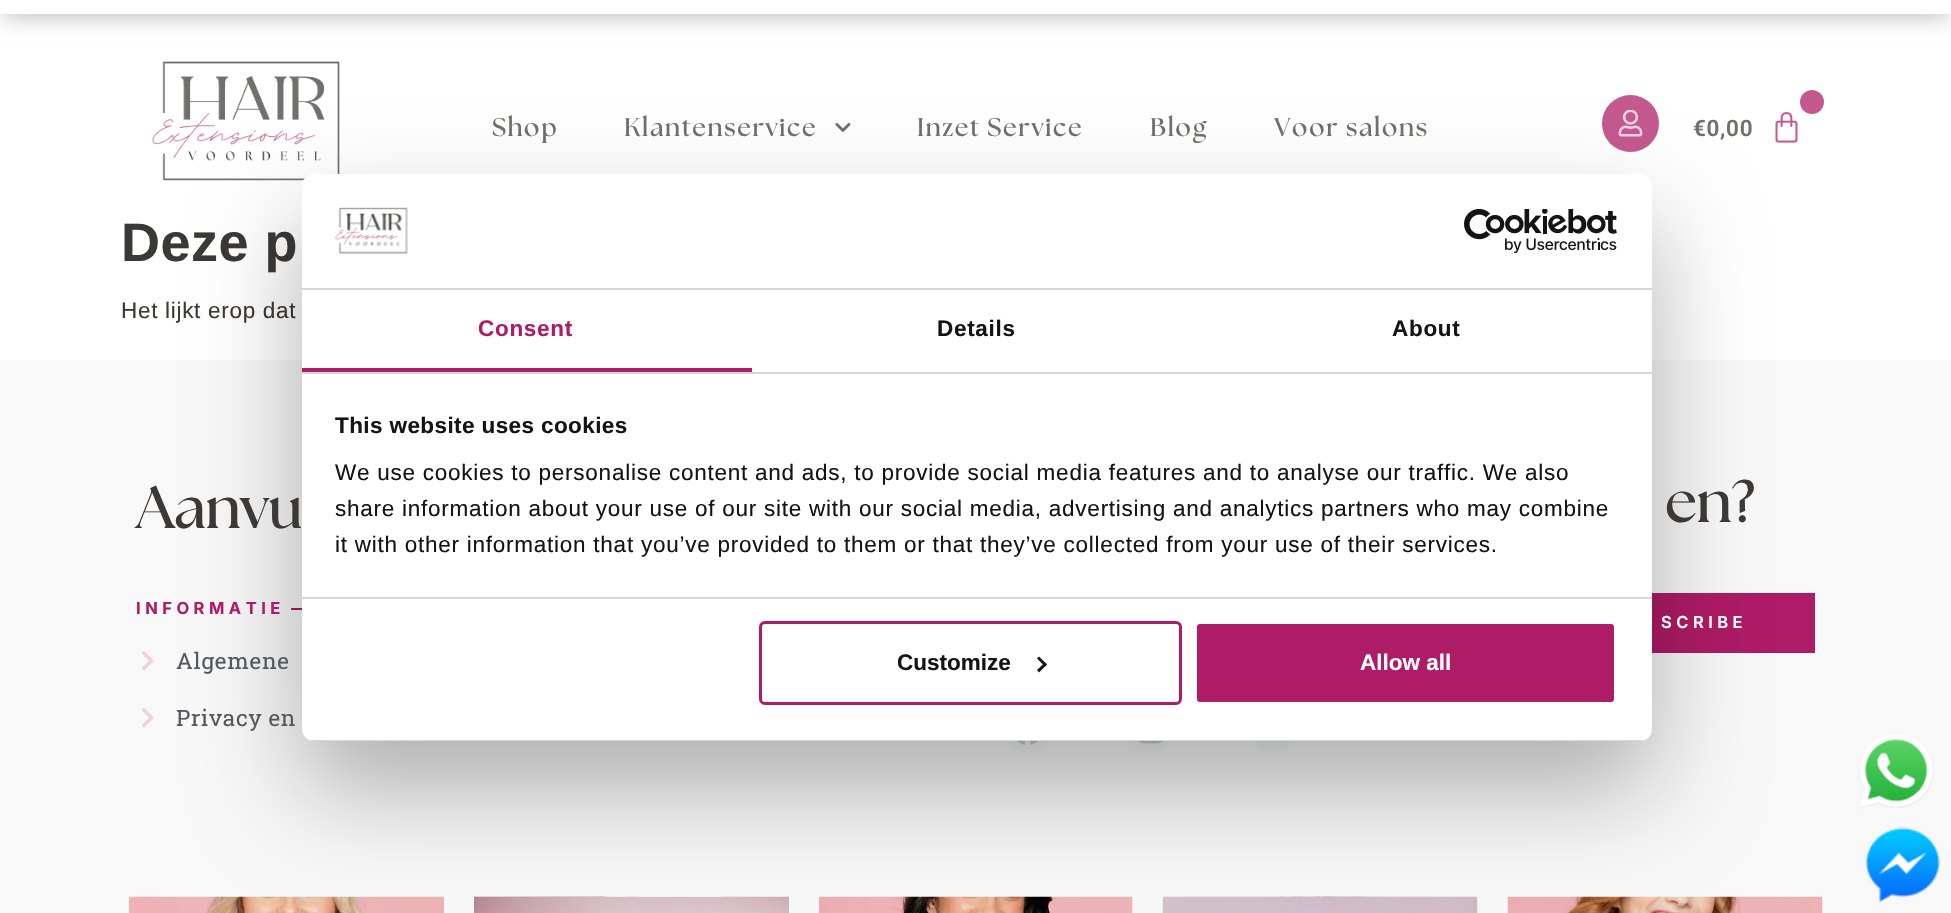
void draw(SkCanvas* canvas) {
    SkPaint paint;
    paint.setAntiAlias(true);
    auto spacedText = [&](const char* s, float x, float y, const SkFont& font, const SkPaint& ink, float letter, float word) {
        std::vector<SkGlyphID> glyphs(font.countText(s, strlen(s), SkTextEncoding::kUTF8));
        std::vector<float> xs(glyphs.size());
        font.textToGlyphs(s, strlen(s), SkTextEncoding::kUTF8, glyphs);
        font.getXPos(glyphs, xs, x);
        float extra = 0;
        for (size_t i = 0; i < glyphs.size(); i++) {
            xs[i] += extra;
            extra += letter + word * (glyphs[i] == font.unicharToGlyph(' '));
        }
        canvas->drawTextBlob(SkTextBlob::MakeFromPosHGlyphs(glyphs, xs, y, font), 0, 0, ink);
    };
    canvas->clear(0xFFFFFFFF);
    paint.setColor(0x4A000000);
    paint.setMaskFilter(SkMaskFilter::MakeBlur(kNormal_SkBlurStyle, 12));
    canvas->drawRect(SkRect::MakeXYWH(3, -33, 1946, 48), paint);
    paint.setMaskFilter(nullptr);
    paint.setColor(0xFFFFFFFF);
    canvas->drawRect(SkRect::MakeXYWH(0, 0, 1951, 14), paint);
    canvas->drawImageRect(SkImages::DeferredFromEncodedData(SkData::MakeFromFileName("img1.png")), SkRect::MakeXYWH(152, 61, 188, 120), SkSamplingOptions());
    SkFont font1(fontMgr->matchFamilyStyle("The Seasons", SkFontStyle::Bold()), 25.5f);
    font1.setSubpixel(true);
    paint.setColor(0xFF706F6D);
    spacedText("Shop", 492, 136, font1, paint, 1.6f, 0);
    spacedText("Klantenservice", 624, 136, font1, paint, 1.6f, 0);
    canvas->drawImageRect(SkImages::DeferredFromEncodedData(SkData::MakeFromFileName("img2.png")), SkRect::MakeXYWH(835, 122, 16, 10), SkSamplingOptions());
    spacedText("Inzet Service", 917, 136, font1, paint, 1.6f, 0);
    spacedText("Blog", 1150, 136, font1, paint, 1.6f, 0);
    spacedText("Voor salons", 1274, 136, font1, paint, 1.6f, 0);
    paint.setColor(0xFFC4598F);
    canvas->drawCircle(1630.5f, 123.5f, 28.5f, paint);
    canvas->drawImageRect(SkImages::DeferredFromEncodedData(SkData::MakeFromFileName("img3.png")), SkRect::MakeXYWH(1618, 110, 25, 27), SkSamplingOptions());
    SkFont font2(fontMgr->matchFamilyStyle("Roboto", SkFontStyle(600, SkFontStyle::kNormal_Width, SkFontStyle::kUpright_Slant)), 22.5f);
    font2.setSubpixel(true);
    paint.setColor(0xFF706F6D);
    spacedText("€0,00", 1693, 136, font2, paint, 0.7f, 0);
    paint.setColor(0xFFC4598F);
    canvas->drawCircle(1812, 102, 12, paint);
    canvas->drawImageRect(SkImages::DeferredFromEncodedData(SkData::MakeFromFileName("img4.png")), SkRect::MakeXYWH(1775, 112, 23, 31), SkSamplingOptions());
    SkFont font3(fontMgr->matchFamilyStyle("Liberation Sans", SkFontStyle::Bold()), 54);
    font3.setSubpixel(true);
    paint.setColor(0xFF3B3937);
    spacedText("Deze p", 121, 261, font3, paint, 0.5f, 0);
    SkFont font4(fontMgr->matchFamilyStyle("Liberation Sans", SkFontStyle::Normal()), 22.5f);
    font4.setSubpixel(true);
    spacedText("Het lijkt erop dat", 121, 318, font4, paint, 0.7f, 0);
    paint.setColor(0xFFF8F8F8);
    canvas->drawRect(SkRect::MakeXYWH(0, 360, 1951, 553), paint);
    paint.setColor(0xFFAE1B66);
    canvas->drawRect(SkRect::MakeXYWH(291, 608, 11, 2), paint);
    canvas->drawImageRect(SkImages::DeferredFromEncodedData(SkData::MakeFromFileName("img7.png")), SkRect::MakeXYWH(142, 651, 12, 20), SkSamplingOptions());
    canvas->drawImageRect(SkImages::DeferredFromEncodedData(SkData::MakeFromFileName("img7.png")), SkRect::MakeXYWH(142, 708, 12, 20), SkSamplingOptions());
    canvas->drawRect(SkRect::MakeXYWH(1652, 593, 163, 60), paint);
    paint.setColor(0xFFF2F6F5);
    canvas->drawRoundRect(SkRect::MakeXYWH(1005, 707, 47, 46), 23, 23, paint);
    canvas->drawImageRect(SkImages::DeferredFromEncodedData(SkData::MakeFromFileName("img8.png")), SkRect::MakeXYWH(1017, 741, 21, 4), SkSamplingOptions());
    canvas->drawCircle(1150, 730, 23, paint);
    canvas->drawImageRect(SkImages::DeferredFromEncodedData(SkData::MakeFromFileName("img9.png")), SkRect::MakeXYWH(1138, 741, 25, 3), SkSamplingOptions());
    canvas->drawRoundRect(SkRect::MakeXYWH(1250, 707, 45, 46), 22.5f, 22.5f, paint);
    canvas->drawImageRect(SkImages::DeferredFromEncodedData(SkData::MakeFromFileName("img10.png")), SkRect::MakeXYWH(129, 896, 315, 17), SkSamplingOptions());
    canvas->drawImageRect(SkImages::DeferredFromEncodedData(SkData::MakeFromFileName("img11.png")), SkRect::MakeXYWH(474, 896, 315, 17), SkSamplingOptions());
    canvas->drawImageRect(SkImages::DeferredFromEncodedData(SkData::MakeFromFileName("img12.png")), SkRect::MakeXYWH(819, 896, 314, 17), SkSamplingOptions());
    canvas->drawImageRect(SkImages::DeferredFromEncodedData(SkData::MakeFromFileName("img13.png")), SkRect::MakeXYWH(1162, 896, 316, 17), SkSamplingOptions());
    canvas->drawImageRect(SkImages::DeferredFromEncodedData(SkData::MakeFromFileName("img14.png")), SkRect::MakeXYWH(1507, 896, 316, 17), SkSamplingOptions());
    paint.setColor(0x4D000000);
    paint.setMaskFilter(SkMaskFilter::MakeBlur(kNormal_SkBlurStyle, 51));
    canvas->drawRoundRect(SkRect::MakeXYWH(302, 222, 1350, 567), 12, 12, paint);
    paint.setMaskFilter(nullptr);
    paint.setColor(0xFFFFFFFF);
    canvas->drawRoundRect(SkRect::MakeXYWH(302, 174, 1350, 567), 12, 12, paint);
    paint.setColor(0xFFD6D6D6);
    canvas->drawRect(SkRect::MakeXYWH(302, 288, 1350, 2), paint);
    canvas->drawImageRect(SkImages::DeferredFromEncodedData(SkData::MakeFromFileName("img5.png")), SkRect::MakeXYWH(334, 207, 74, 47), SkSamplingOptions());
    canvas->drawImageRect(SkImages::DeferredFromEncodedData(SkData::MakeFromFileName("img6.png")), SkRect::MakeXYWH(1464, 209, 153, 45), SkSamplingOptions());
    canvas->drawRect(SkRect::MakeXYWH(302, 372, 1350, 2), paint);
    paint.setColor(0xFFAE1B66);
    canvas->drawRect(SkRect::MakeXYWH(302, 368, 450, 4), paint);
    SkFont font5(fontMgr->matchFamilyStyle("Liberation Sans", SkFontStyle::Bold()), 22.5f);
    font5.setSubpixel(true);
    spacedText("Consent", 478, 336, font5, paint, 0.7f, 0);
    paint.setColor(0xFF141414);
    spacedText("Details", 937, 336, font5, paint, 0.7f, 0);
    spacedText("About", 1392, 336, font5, paint, 0.7f, 0);
    paint.setColor(0xFFD6D6D6);
    canvas->drawRect(SkRect::MakeXYWH(302, 597, 1350, 2), paint);
    paint.setColor(0xFF141414);
    spacedText("This website uses cookies", 335, 433, font5, paint, 0.4f, 0);
    spacedText("We use cookies to personalise content and ads, to provide social media features and to analyse our traffic. We also", 335, 480, font4, paint, 0.75f, 0);
    spacedText("share information about your use of our site with our social media, advertising and analytics partners who may combine", 335, 516, font4, paint, 0.75f, 0);
    spacedText("it with other information that you’ve provided to them or that they’ve collected from your use of their services.", 335, 552, font4, paint, 0.75f, 0);
    canvas->save();
    canvas->clipPath(SkPathBuilder().moveTo(314, 174).lineTo(1640, 174).cubicTo(1646.5f, 174, 1652, 179.5f, 1652, 186).lineTo(1652, 729).cubicTo(1652, 735.5f, 1646.5f, 741, 1640, 741).lineTo(314, 741).cubicTo(307.5f, 741, 302, 735.5f, 302, 729).lineTo(302, 186).cubicTo(302, 179.5f, 307.5f, 174, 314, 174).close().detach(), true);
    paint.setColor(0xFFD6D6D6);
    canvas->drawRect(SkRect::MakeXYWH(302, 740, 1350, 1), paint);
    canvas->restore();
    paint.setStyle(SkPaint::kStroke_Style);
    paint.setStrokeWidth(3);
    paint.setColor(0xFFAE1B66);
    canvas->drawRoundRect(SkRect::MakeXYWH(760.5f, 622.5f, 420, 81), 4.5f, 4.5f, paint);
    paint.setStyle(SkPaint::kFill_Style);
    paint.setColor(0xFF141414);
    canvas->drawString("Customize", 897, 670, font5, paint);
    canvas->drawPath(SkPathBuilder().moveTo(1039, 656.5f).lineTo(1047, 664.5f).lineTo(1045, 666.5f).lineTo(1037, 658.5f).close().detach(), paint);
    canvas->drawPath(SkPathBuilder().moveTo(1045, 662.5f).lineTo(1047, 664.5f).lineTo(1039, 672.5f).lineTo(1037, 670).close().detach(), paint);
    paint.setColor(0xFFAE1B66);
    canvas->drawRoundRect(SkRect::MakeXYWH(1195.5f, 622.5f, 420, 81), 4.5f, 4.5f, paint);
    paint.setStyle(SkPaint::kStroke_Style);
    paint.setColor(0xFFFFFFFF);
    canvas->drawRoundRect(SkRect::MakeXYWH(1195.5f, 622.5f, 420, 81), 4.5f, 4.5f, paint);
    paint.setStyle(SkPaint::kFill_Style);
    canvas->drawString("Allow all", 1360, 670, font5, paint);
    SkFont font6(fontMgr->matchFamilyStyle("The Seasons", SkFontStyle::Bold()), 60);
    font6.setSubpixel(true);
    paint.setColor(0xFF3B3937);
    spacedText("Aanvu", 136, 528, font6, paint, -0.5f, 0);
    SkFont font7(fontMgr->matchFamilyStyle("Inter", SkFontStyle::Bold()), 16.5f);
    font7.setSubpixel(true);
    paint.setColor(0xFFAE1B66);
    spacedText("INFORMATIE", 136, 614, font7, paint, 4.5f, 0);
    SkFont font8(fontMgr->matchFamilyStyle("Roboto Slab", SkFontStyle::Normal()), 22.5f);
    font8.setSubpixel(true);
    paint.setColor(0xFF54595F);
    spacedText("Algemene", 176, 669, font8, paint, 0.7f, 0);
    spacedText("Privacy en", 176, 726, font8, paint, 0.7f, 0);
    paint.setColor(0xFF3B3937);
    spacedText("en?", 1665, 522, font6, paint, -0.5f, 0);
    SkFont font9(fontMgr->matchFamilyStyle("Inter", SkFontStyle(600, SkFontStyle::kNormal_Width, SkFontStyle::kUpright_Slant)), 16.5f);
    font9.setSubpixel(true);
    paint.setColor(0xFFFFFFFF);
    spacedText("SCRIBE", 1661, 628, font9, paint, 4.5f, 0);
    canvas->drawImageRect(SkImages::DeferredFromEncodedData(SkData::MakeFromFileName("img15.png")), SkRect::MakeXYWH(1858, 734, 76, 75), SkSamplingOptions());
    canvas->drawImageRect(SkImages::DeferredFromEncodedData(SkData::MakeFromFileName("img16.png")), SkRect::MakeXYWH(1865, 826, 75, 77), SkSamplingOptions());
}
